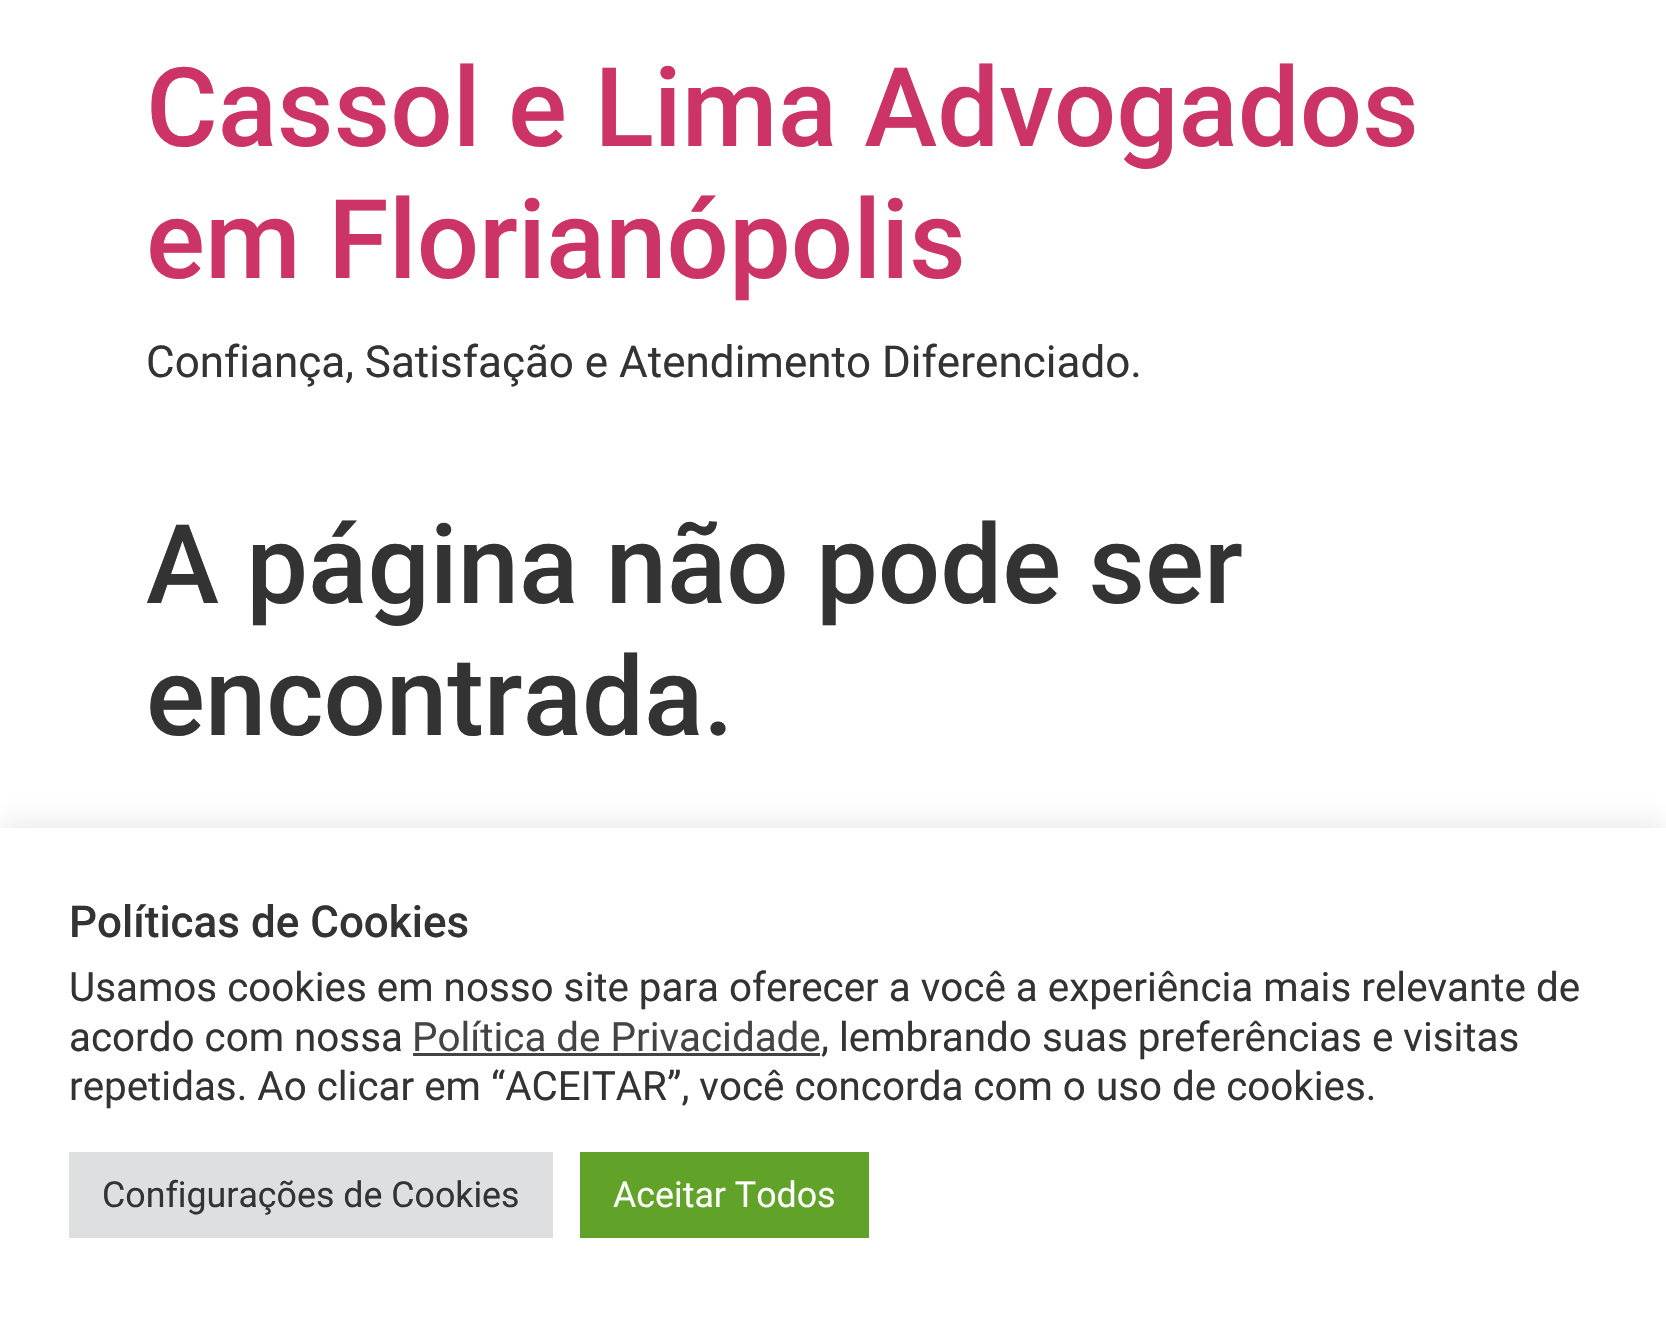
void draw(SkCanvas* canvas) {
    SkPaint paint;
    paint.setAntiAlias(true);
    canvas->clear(0xFFFFFFFF);
    SkFont font1(fontMgr->matchFamilyStyle("Roboto", SkFontStyle(500, SkFontStyle::kNormal_Width, SkFontStyle::kUpright_Slant)), 110);
    font1.setSubpixel(true);
    paint.setColor(0xFFCC3366);
    canvas->drawString("Cassol e Lima Advogados", 146, 146, font1, paint);
    canvas->drawString("em Florianópolis", 146, 278, font1, paint);
    SkFont font2(fontMgr->matchFamilyStyle("Roboto", SkFontStyle::Normal()), 44);
    font2.setSubpixel(true);
    paint.setColor(0xFF333333);
    canvas->drawString("Confiança, Satisfação e Atendimento Diferenciado.", 146, 377, font2, paint);
    canvas->drawString("A página não pode ser", 146, 603, font1, paint);
    canvas->drawString("encontrada.", 146, 735, font1, paint);
    paint.setColor(0x4DACABAB);
    paint.setMaskFilter(SkMaskFilter::MakeBlur(kNormal_SkBlurStyle, 14));
    canvas->drawRect(SkRect::MakeXYWH(0, 825, 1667, 492), paint);
    paint.setMaskFilter(nullptr);
    paint.setColor(0xFFFFFFFF);
    canvas->drawRect(SkRect::MakeXYWH(0, 828, 1666, 491), paint);
    SkFont font3(fontMgr->matchFamilyStyle("Roboto", SkFontStyle(500, SkFontStyle::kNormal_Width, SkFontStyle::kUpright_Slant)), 44);
    font3.setSubpixel(true);
    paint.setColor(0xFF333333);
    canvas->drawString("Políticas de Cookies", 69, 937, font3, paint);
    SkFont font4(fontMgr->matchFamilyStyle("Roboto", SkFontStyle::Normal()), 40.35f);
    font4.setSubpixel(true);
    canvas->drawString("Usamos cookies em nosso site para oferecer a você a experiência mais relevante de", 69, 1001, font4, paint);
    canvas->drawString("acordo com nossa", 69, 1051, font4, paint);
    paint.setColor(0xFF444444);
    canvas->drawString("Política de Privacidade", 412, 1051, font4, paint);
    canvas->drawRect(SkRect::MakeXYWH(413, 1053, 407, 3), paint);
    paint.setColor(0xFF333333);
    canvas->drawString(", lembrando suas preferências e visitas", 821, 1051, font4, paint);
    canvas->drawString("repetidas. Ao clicar em “ACEITAR”, você concorda com o uso de cookies.", 69, 1100, font4, paint);
    paint.setColor(0xFFDEDFE0);
    canvas->drawRect(SkRect::MakeXYWH(69, 1152, 484, 86), paint);
    SkFont font5(fontMgr->matchFamilyStyle("Roboto", SkFontStyle::Normal()), 35.75f);
    font5.setSubpixel(true);
    paint.setColor(0xFF333333);
    canvas->drawString("Configurações de Cookies", 102, 1207, font5, paint);
    paint.setColor(0xFF61A229);
    canvas->drawRect(SkRect::MakeXYWH(580, 1152, 289, 86), paint);
    paint.setColor(0xFFFFFFFF);
    canvas->drawString("Aceitar Todos", 613, 1207, font5, paint);
}
